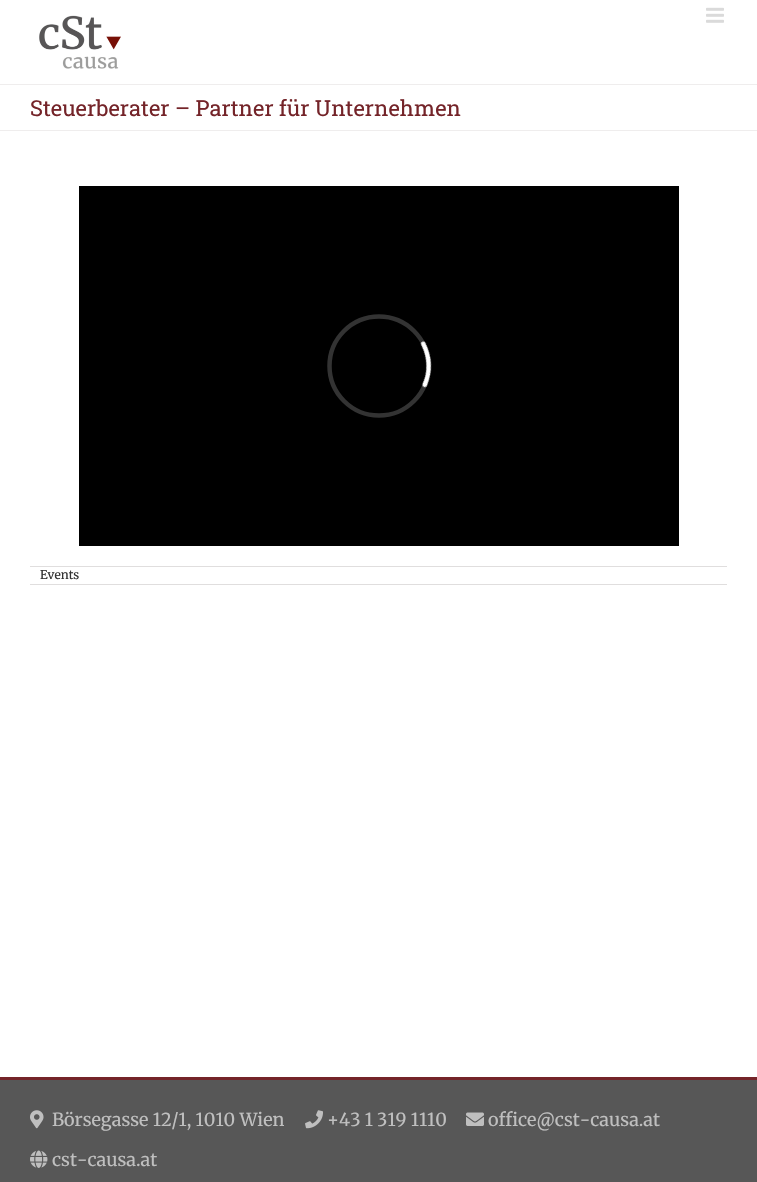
void draw(SkCanvas* canvas) {
    SkPaint paint;
    paint.setAntiAlias(true);
    canvas->clear(0xFFFFFFFF);
    canvas->drawImageRect(SkImages::DeferredFromEncodedData(SkData::MakeFromFileName("img1.png")), SkRect::MakeXYWH(39, 15, 82, 54), SkSamplingOptions());
    canvas->drawImageRect(SkImages::DeferredFromEncodedData(SkData::MakeFromFileName("img2.png")), SkRect::MakeXYWH(706, 7, 18, 16), SkSamplingOptions());
    paint.setColor(0xFFEFEDED);
    canvas->drawRect(SkRect::MakeXYWH(0, 84, 757, 1), paint);
    canvas->drawRect(SkRect::MakeXYWH(0, 130, 757, 1), paint);
    SkFont font1(fontMgr->matchFamilyStyle("Roboto Slab", SkFontStyle::Normal()), 22);
    font1.setSubpixel(true);
    paint.setColor(0xFF742429);
    canvas->drawString("Steuerberater – Partner für Unternehmen", 30, 116, font1, paint);
    canvas->drawImageRect(SkImages::DeferredFromEncodedData(SkData::MakeFromFileName("img3.png")), SkRect::MakeXYWH(79, 186, 600, 360), SkSamplingOptions());
    paint.setColor(0xFFE0DEDE);
    canvas->drawRect(SkRect::MakeXYWH(30, 566, 697, 1), paint);
    canvas->drawRect(SkRect::MakeXYWH(30, 584, 697, 1), paint);
    SkFont font2(fontMgr->matchFamilyStyle("Merriweather", SkFontStyle::Normal()), 12);
    font2.setSubpixel(true);
    paint.setColor(0xFF333333);
    canvas->drawString("Events", 40, 579, font2, paint);
    paint.setColor(0xFF575757);
    canvas->drawRect(SkRect::MakeXYWH(0, 1080, 757, 102), paint);
    paint.setColor(0xFF742429);
    canvas->drawRect(SkRect::MakeXYWH(0, 1077, 757, 3), paint);
    canvas->drawImageRect(SkImages::DeferredFromEncodedData(SkData::MakeFromFileName("img4.png")), SkRect::MakeXYWH(30, 1110, 14, 19), SkSamplingOptions());
    SkFont font3(fontMgr->matchFamilyStyle("Merriweather", SkFontStyle::Normal()), 18);
    font3.setSubpixel(true);
    paint.setColor(0xFFBFBFBF);
    canvas->drawString("Börsegasse 12/1, 1010 Wien", 52, 1126, font3, paint);
    canvas->drawImageRect(SkImages::DeferredFromEncodedData(SkData::MakeFromFileName("img5.png")), SkRect::MakeXYWH(305, 1110, 18, 19), SkSamplingOptions());
    canvas->drawString("+43 1 319 1110", 327, 1126, font3, paint);
    canvas->drawImageRect(SkImages::DeferredFromEncodedData(SkData::MakeFromFileName("img6.png")), SkRect::MakeXYWH(466, 1112, 18, 14), SkSamplingOptions());
    canvas->drawString("office@cst-causa.at", 488, 1126, font3, paint);
    canvas->drawImageRect(SkImages::DeferredFromEncodedData(SkData::MakeFromFileName("img7.png")), SkRect::MakeXYWH(30, 1150, 18, 18), SkSamplingOptions());
    canvas->drawString("cst-causa.at", 52, 1166, font3, paint);
}
